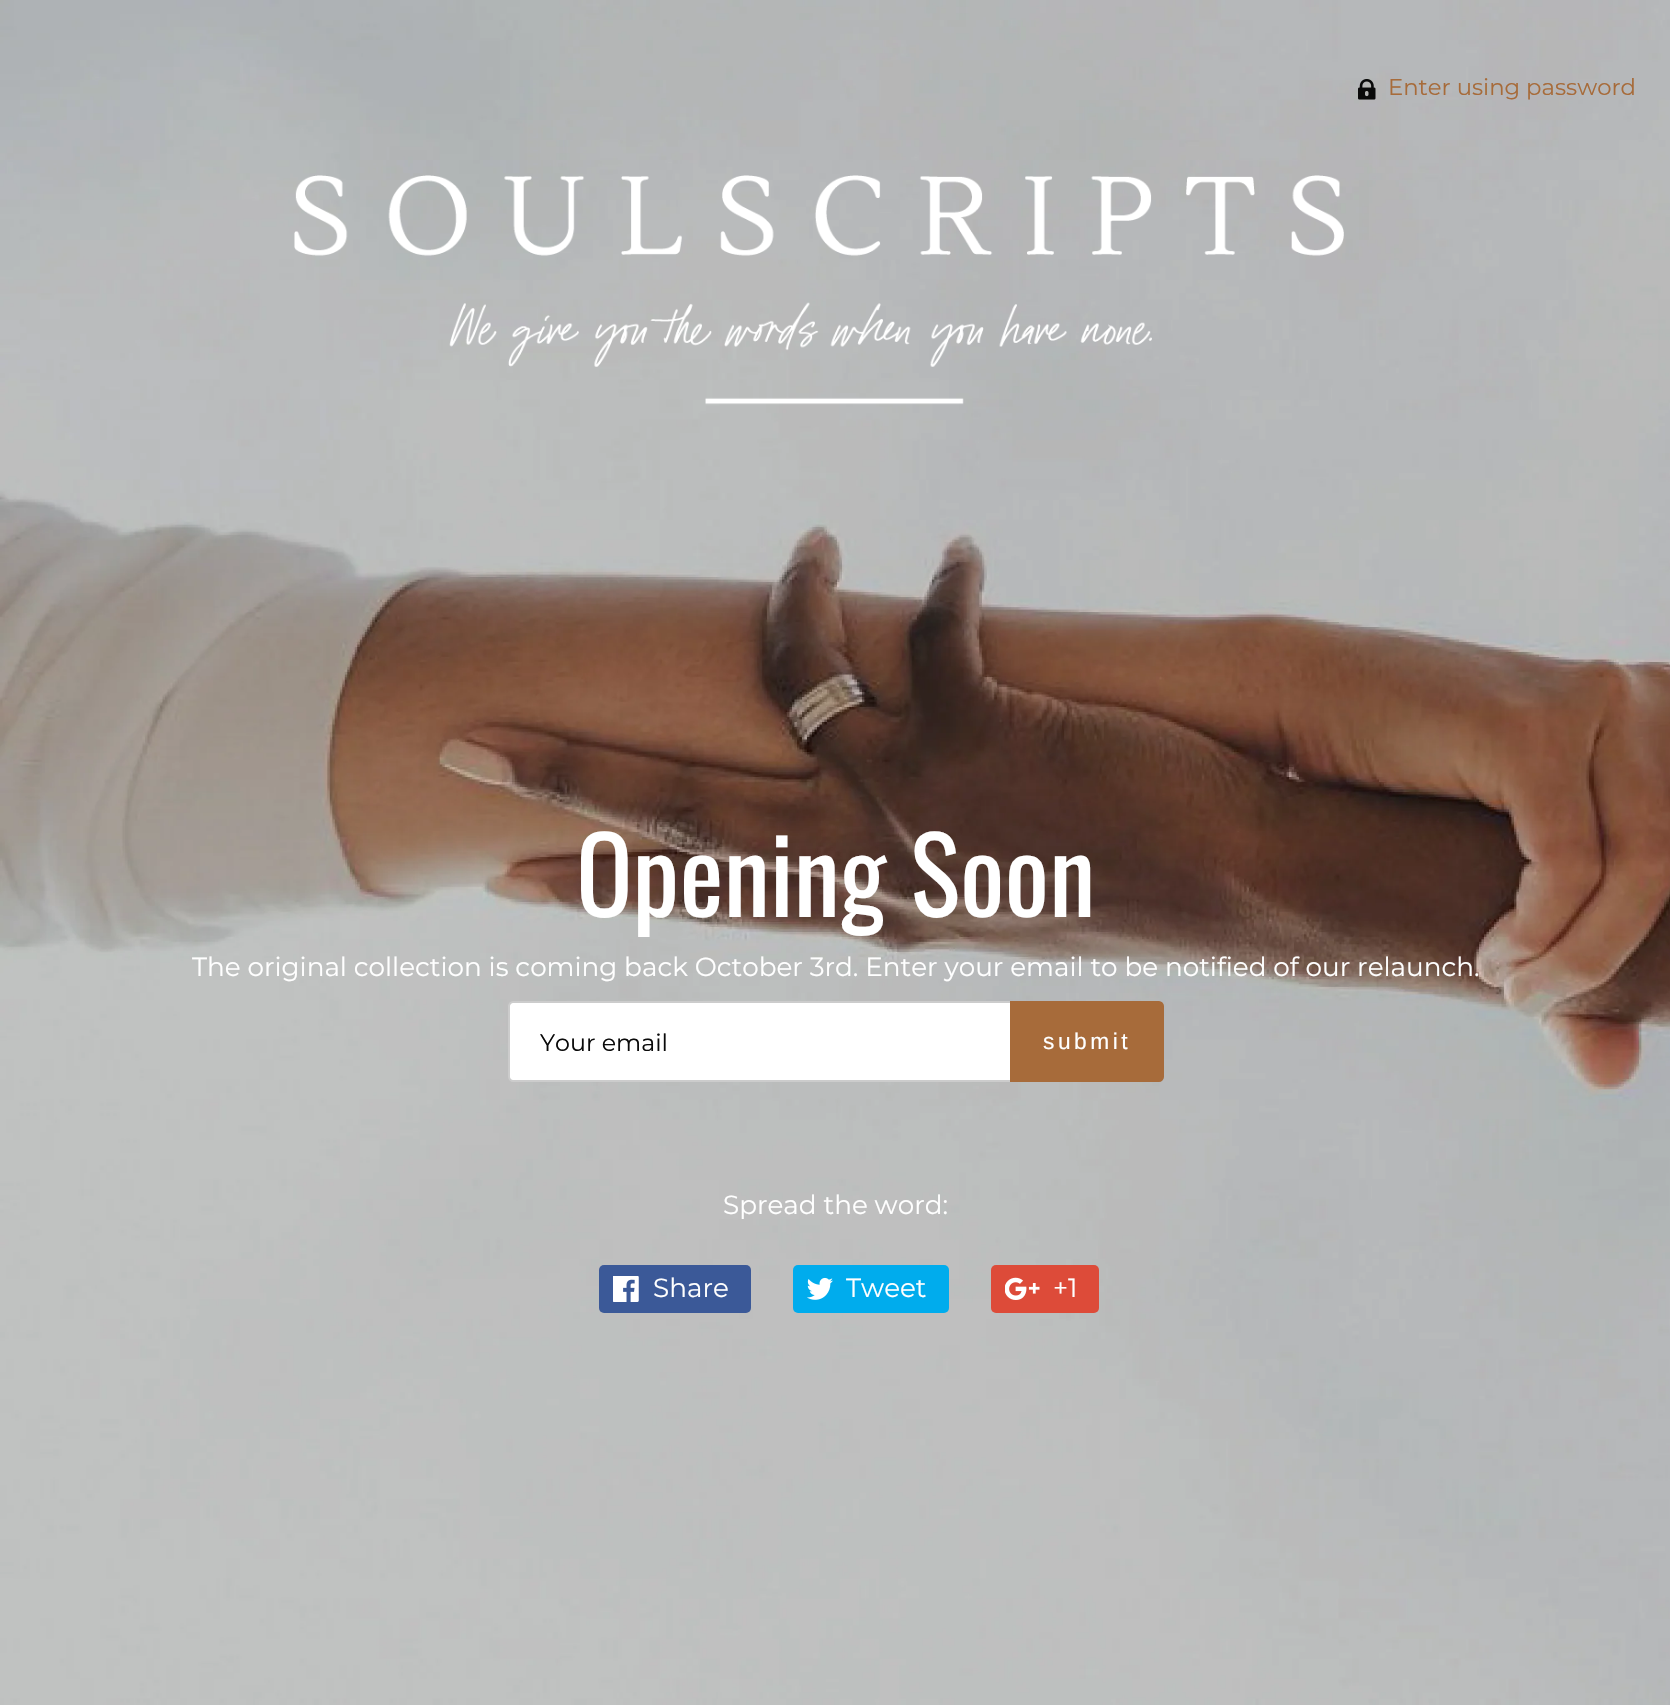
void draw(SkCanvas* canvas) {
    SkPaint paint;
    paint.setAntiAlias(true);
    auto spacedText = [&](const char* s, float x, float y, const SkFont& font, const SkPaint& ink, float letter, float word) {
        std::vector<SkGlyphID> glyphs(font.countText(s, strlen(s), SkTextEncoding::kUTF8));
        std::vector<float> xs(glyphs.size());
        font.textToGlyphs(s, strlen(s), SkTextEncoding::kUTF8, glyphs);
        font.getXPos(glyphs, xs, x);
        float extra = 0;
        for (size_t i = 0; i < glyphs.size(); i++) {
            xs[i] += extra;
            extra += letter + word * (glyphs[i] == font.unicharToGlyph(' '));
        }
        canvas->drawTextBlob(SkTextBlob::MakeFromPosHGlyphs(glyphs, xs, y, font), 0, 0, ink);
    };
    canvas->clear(0xFFFFFFFF);
    canvas->drawImageRect(SkImages::DeferredFromEncodedData(SkData::MakeFromFileName("img1.png")), SkRect::MakeXYWH(0, 0, 1670, 1705), SkSamplingOptions());
    canvas->drawImageRect(SkImages::DeferredFromEncodedData(SkData::MakeFromFileName("img2.png")), SkRect::MakeXYWH(1358, 79, 18, 21), SkSamplingOptions());
    SkFont font1(fontMgr->matchFamilyStyle("Montserrat", SkFontStyle::Normal()), 22.75f);
    font1.setSubpixel(true);
    paint.setColor(0xFFA76B3A);
    canvas->drawString("Enter using password", 1388, 95, font1, paint);
    canvas->drawImageRect(SkImages::DeferredFromEncodedData(SkData::MakeFromFileName("img3.png")), SkRect::MakeXYWH(294, 175, 1050, 230), SkSamplingOptions());
    SkFont font2(fontMgr->matchFamilyStyle("Oswald", SkFontStyle::Normal()), 105);
    font2.setSubpixel(true);
    paint.setColor(0xFFFFFFFF);
    canvas->drawString("Opening Soon", 576, 917, font2, paint);
    SkFont font3(fontMgr->matchFamilyStyle("Montserrat", SkFontStyle::Normal()), 26.25f);
    font3.setSubpixel(true);
    canvas->drawString("The original collection is coming back October 3rd. Enter your email to be notified of our relaunch.", 192, 976, font3, paint);
    canvas->drawPath(SkPathBuilder().moveTo(513, 1002).lineTo(1011, 1002).lineTo(1011, 1081).lineTo(513, 1081).cubicTo(511, 1081, 509, 1079, 509, 1077).lineTo(509, 1006).cubicTo(509, 1004, 511, 1002, 513, 1002).close().detach(), paint);
    paint.setStyle(SkPaint::kStroke_Style);
    paint.setStrokeWidth(2);
    paint.setColor(0xFFCCCCCC);
    canvas->drawPath(SkPathBuilder().moveTo(513, 1002).lineTo(1011, 1002).lineTo(1011, 1081).lineTo(513, 1081).cubicTo(511, 1081, 509, 1079, 509, 1077).lineTo(509, 1006).cubicTo(509, 1004, 511, 1002, 513, 1002).close().detach(), paint);
    SkFont font4(fontMgr->matchFamilyStyle("Montserrat", SkFontStyle::Normal()), 23.75f);
    font4.setSubpixel(true);
    paint.setStyle(SkPaint::kFill_Style);
    paint.setColor(0xFF0A0A0A);
    canvas->drawString("Your email", 540, 1051, font4, paint);
    paint.setColor(0xFFA76B3A);
    canvas->drawPath(SkPathBuilder().moveTo(1011, 1002).lineTo(1159, 1002).cubicTo(1161, 1002, 1163, 1004, 1163, 1006).lineTo(1163, 1077).cubicTo(1163, 1079, 1161, 1081, 1159, 1081).lineTo(1011, 1081).close().detach(), paint);
    paint.setStyle(SkPaint::kStroke_Style);
    canvas->drawPath(SkPathBuilder().moveTo(1011, 1002).lineTo(1159, 1002).cubicTo(1161, 1002, 1163, 1004, 1163, 1006).lineTo(1163, 1077).cubicTo(1163, 1079, 1161, 1081, 1159, 1081).lineTo(1011, 1081).close().detach(), paint);
    SkFont font5(fontMgr->matchFamilyStyle("Liberation Sans", SkFontStyle::Normal()), 22.75f);
    font5.setSubpixel(true);
    paint.setStyle(SkPaint::kFill_Style);
    paint.setColor(0xFFFFFFFF);
    spacedText("submit", 1043, 1049, font5, paint, 3.5f, 0);
    canvas->drawString("Spread the word:", 723, 1214, font3, paint);
    paint.setColor(0xFF3B5998);
    canvas->drawRoundRect(SkRect::MakeXYWH(599, 1265, 152, 48), 5, 5, paint);
    canvas->drawImageRect(SkImages::DeferredFromEncodedData(SkData::MakeFromFileName("img4.png")), SkRect::MakeXYWH(613, 1276, 26, 26), SkSamplingOptions());
    paint.setColor(0xFFFFFFFF);
    canvas->drawString("Share", 653, 1297, font3, paint);
    paint.setColor(0xFF00ACED);
    canvas->drawRoundRect(SkRect::MakeXYWH(793, 1265, 156, 48), 5, 5, paint);
    canvas->drawImageRect(SkImages::DeferredFromEncodedData(SkData::MakeFromFileName("img5.png")), SkRect::MakeXYWH(807, 1277, 26, 23), SkSamplingOptions());
    paint.setColor(0xFFFFFFFF);
    canvas->drawString("Tweet", 846, 1297, font3, paint);
    paint.setColor(0xFFDD4B39);
    canvas->drawRoundRect(SkRect::MakeXYWH(991, 1265, 108, 48), 5, 5, paint);
    canvas->drawImageRect(SkImages::DeferredFromEncodedData(SkData::MakeFromFileName("img6.png")), SkRect::MakeXYWH(1005, 1277, 35, 23), SkSamplingOptions());
    paint.setColor(0xFFFFFFFF);
    canvas->drawString("+1", 1053, 1297, font3, paint);
}
